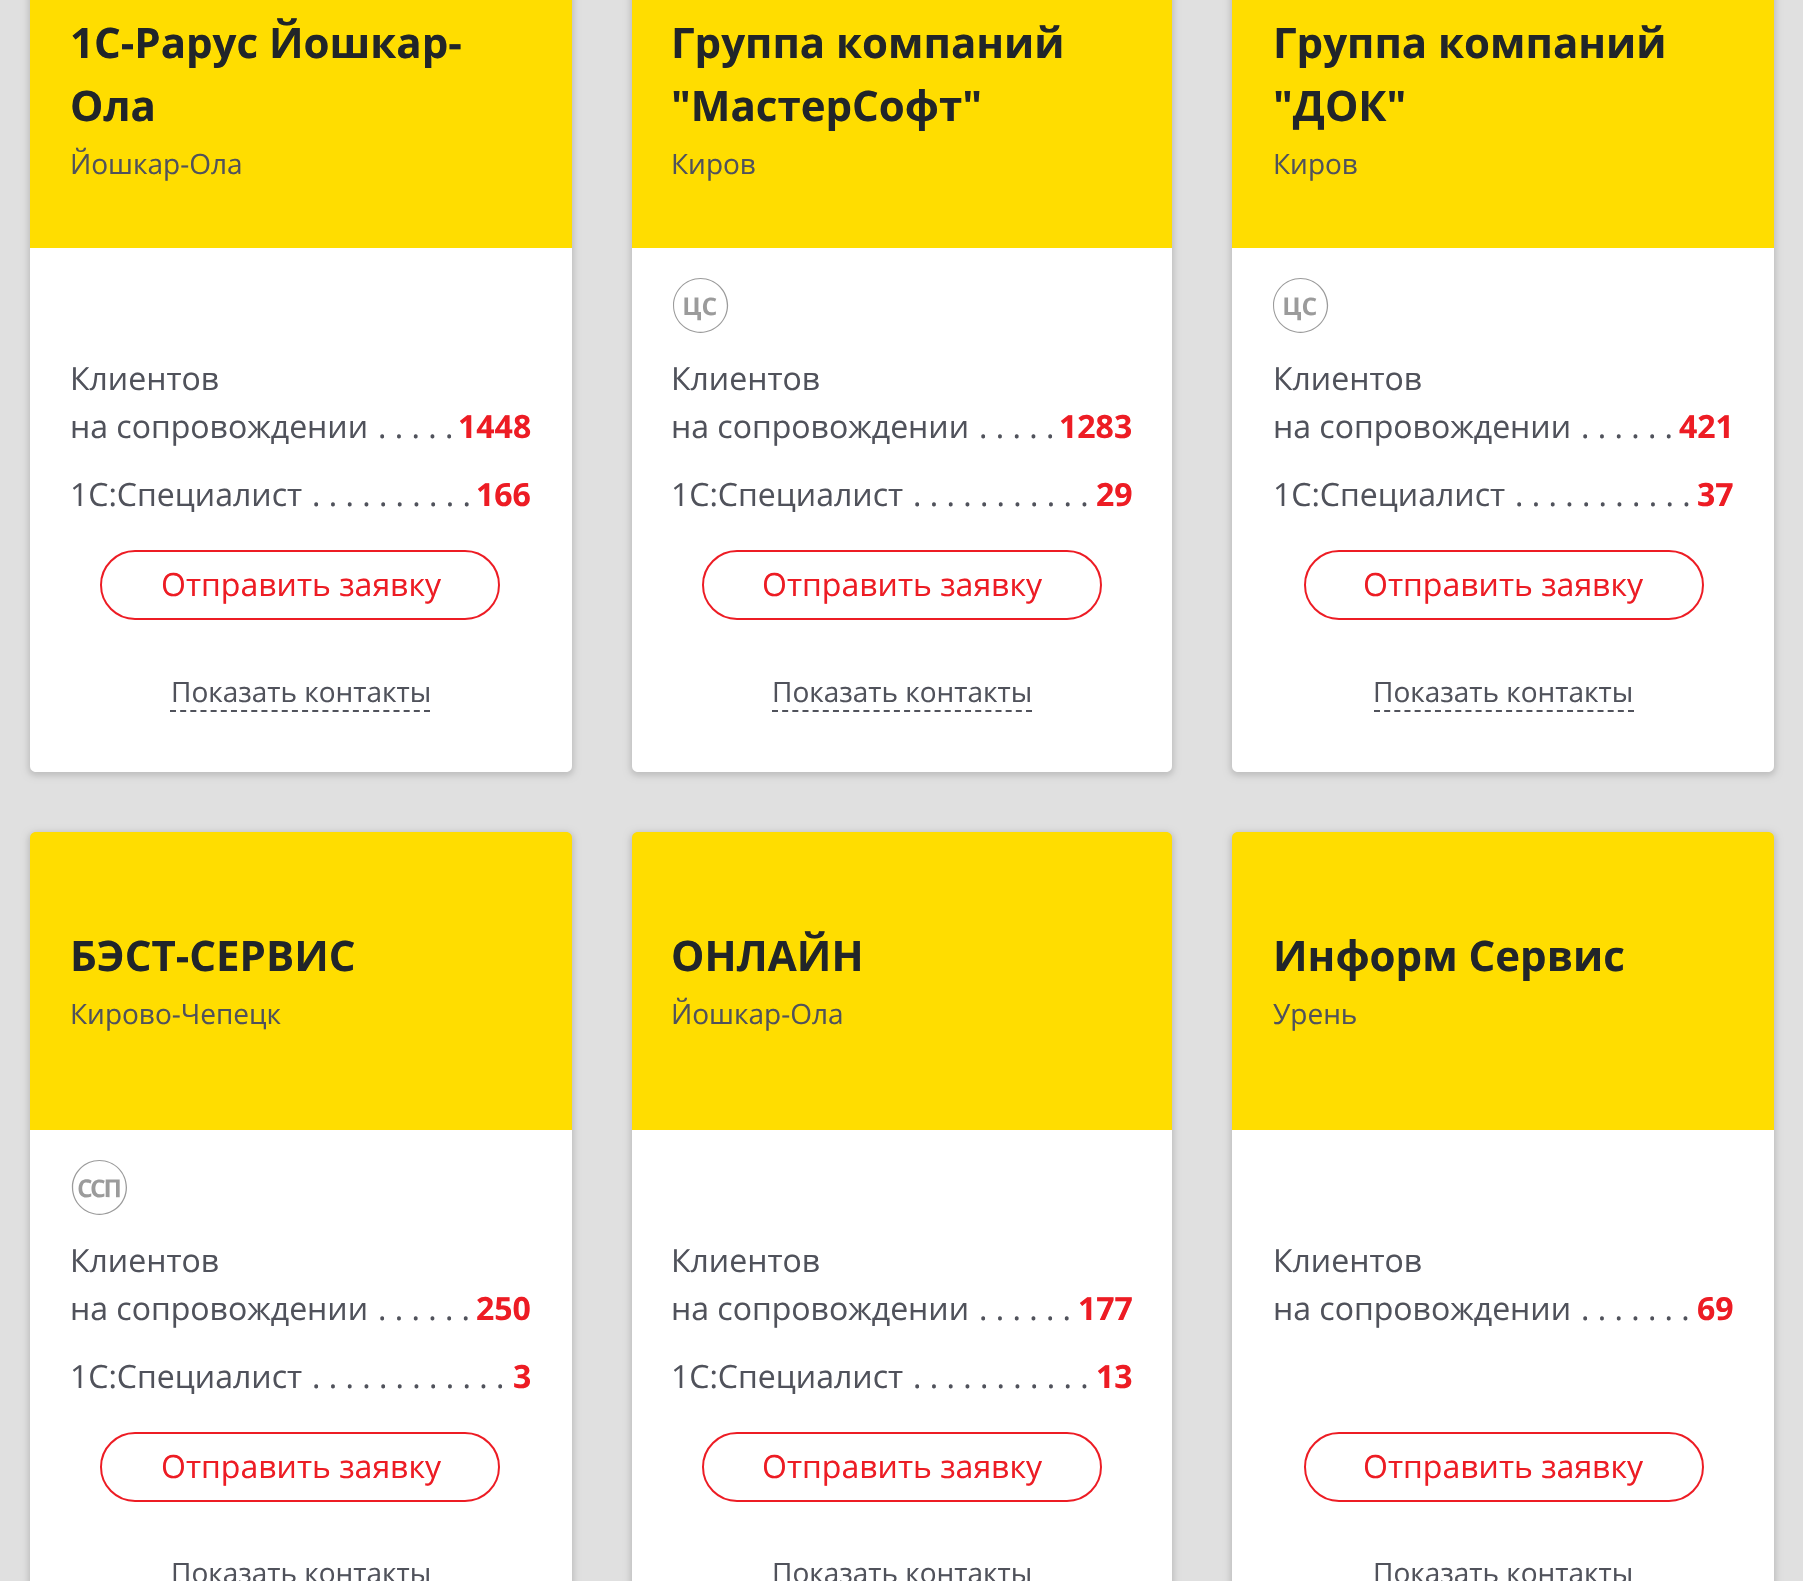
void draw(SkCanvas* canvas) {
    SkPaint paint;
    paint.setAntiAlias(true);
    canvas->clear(0xFFE0E0E0);
    paint.setColor(0x26000000);
    paint.setMaskFilter(SkMaskFilter::MakeBlur(kNormal_SkBlurStyle, 3));
    canvas->drawRoundRect(SkRect::MakeXYWH(28, -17, 546, 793), 8, 8, paint);
    paint.setMaskFilter(nullptr);
    paint.setColor(0xFFFFDD00);
    canvas->drawRect(SkRect::MakeXYWH(30, 0, 542, 248), paint);
    SkFont font1(fontMgr->matchFamilyStyle("Open Sans", SkFontStyle::Bold()), 42);
    font1.setSubpixel(true);
    paint.setColor(0xFF212529);
    canvas->drawString("1С-Рарус Йошкар-", 70, 58, font1, paint);
    canvas->drawString("Ола", 70, 121, font1, paint);
    SkFont font2(fontMgr->matchFamilyStyle("Open Sans", SkFontStyle::Normal()), 28);
    font2.setSubpixel(true);
    paint.setColor(0xFF50525B);
    canvas->drawString("Йошкар-Ола", 70, 174, font2, paint);
    paint.setColor(0xFFFFFFFF);
    canvas->drawPath(SkPathBuilder().moveTo(30, 248).lineTo(572, 248).lineTo(572, 766).cubicTo(572, 769.5f, 569.5f, 772, 566, 772).lineTo(36, 772).cubicTo(32.5f, 772, 30, 769.5f, 30, 766).close().detach(), paint);
    SkFont font3(fontMgr->matchFamilyStyle("Open Sans", SkFontStyle::Normal()), 32);
    font3.setSubpixel(true);
    paint.setColor(0xFF50525B);
    canvas->drawString("Клиентов", 70, 390, font3, paint);
    canvas->drawString("на сопровождении", 70, 438, font3, paint);
    canvas->drawString(". . . . .", 378, 438, font3, paint);
    SkFont font4(fontMgr->matchFamilyStyle("Open Sans", SkFontStyle::Bold()), 32);
    font4.setSubpixel(true);
    paint.setColor(0xFFED1C24);
    canvas->drawString("1448", 458, 438, font4, paint);
    paint.setColor(0xFF50525B);
    canvas->drawString("1С:Специалист", 70, 506, font3, paint);
    canvas->drawString(". . . . . . . . . .", 312, 506, font3, paint);
    paint.setColor(0xFFED1C24);
    canvas->drawString("166", 476, 506, font4, paint);
    paint.setStyle(SkPaint::kStroke_Style);
    paint.setStrokeWidth(2);
    canvas->drawRoundRect(SkRect::MakeXYWH(101, 551, 398, 68), 34, 34, paint);
    paint.setStyle(SkPaint::kFill_Style);
    canvas->drawString("Отправить заявку", 161, 596, font3, paint);
    paint.setStyle(SkPaint::kStroke_Style);
    paint.setColor(0xFF50525B);
    paint.setPathEffect(SkDashPathEffect::Make({{6, 4.16f}}, 0));
    canvas->drawPath(SkPathBuilder().moveTo(170, 711).lineTo(430, 711).detach(), paint);
    paint.setPathEffect(nullptr);
    paint.setStyle(SkPaint::kFill_Style);
    canvas->drawString("Показать контакты", 171, 702, font2, paint);
    paint.setColor(0x26000000);
    paint.setMaskFilter(SkMaskFilter::MakeBlur(kNormal_SkBlurStyle, 3));
    canvas->drawRoundRect(SkRect::MakeXYWH(630, -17, 544, 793), 8, 8, paint);
    paint.setMaskFilter(nullptr);
    paint.setColor(0xFFFFDD00);
    canvas->drawRect(SkRect::MakeXYWH(632, 0, 540, 248), paint);
    paint.setColor(0xFF212529);
    canvas->drawString("Группа компаний", 671, 58, font1, paint);
    canvas->drawString("\"МастерСофт\"", 671, 121, font1, paint);
    paint.setColor(0xFF50525B);
    canvas->drawString("Киров", 671, 174, font2, paint);
    paint.setColor(0xFFFFFFFF);
    canvas->drawPath(SkPathBuilder().moveTo(632, 248).lineTo(1172, 248).lineTo(1172, 766).cubicTo(1172, 769.5f, 1169.5f, 772, 1166, 772).lineTo(638, 772).cubicTo(634.5f, 772, 632, 769.5f, 632, 766).close().detach(), paint);
    canvas->drawImageRect(SkImages::DeferredFromEncodedData(SkData::MakeFromFileName("img1.png")), SkRect::MakeXYWH(673, 278, 56, 55), SkSamplingOptions());
    paint.setColor(0xFF50525B);
    canvas->drawString("Клиентов", 671, 390, font3, paint);
    canvas->drawString("на сопровождении", 671, 438, font3, paint);
    canvas->drawString(". . . . .", 979, 438, font3, paint);
    paint.setColor(0xFFED1C24);
    canvas->drawString("1283", 1059, 438, font4, paint);
    paint.setColor(0xFF50525B);
    canvas->drawString("1С:Специалист", 671, 506, font3, paint);
    canvas->drawString(". . . . . . . . . . .", 913, 506, font3, paint);
    paint.setColor(0xFFED1C24);
    canvas->drawString("29", 1096, 506, font4, paint);
    paint.setStyle(SkPaint::kStroke_Style);
    canvas->drawRoundRect(SkRect::MakeXYWH(703, 551, 398, 68), 34, 34, paint);
    paint.setStyle(SkPaint::kFill_Style);
    canvas->drawString("Отправить заявку", 762, 596, font3, paint);
    paint.setStyle(SkPaint::kStroke_Style);
    paint.setColor(0xFF50525B);
    paint.setPathEffect(SkDashPathEffect::Make({{6, 4.16f}}, 0));
    canvas->drawPath(SkPathBuilder().moveTo(772, 711).lineTo(1032, 711).detach(), paint);
    paint.setPathEffect(nullptr);
    paint.setStyle(SkPaint::kFill_Style);
    canvas->drawString("Показать контакты", 772, 702, font2, paint);
    paint.setColor(0x26000000);
    paint.setMaskFilter(SkMaskFilter::MakeBlur(kNormal_SkBlurStyle, 3));
    canvas->drawRoundRect(SkRect::MakeXYWH(1230, -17, 546, 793), 8, 8, paint);
    paint.setMaskFilter(nullptr);
    paint.setColor(0xFFFFDD00);
    canvas->drawRect(SkRect::MakeXYWH(1232, 0, 542, 248), paint);
    paint.setColor(0xFF212529);
    canvas->drawString("Группа компаний", 1273, 58, font1, paint);
    canvas->drawString("\"ДОК\"", 1273, 121, font1, paint);
    paint.setColor(0xFF50525B);
    canvas->drawString("Киров", 1273, 174, font2, paint);
    paint.setColor(0xFFFFFFFF);
    canvas->drawPath(SkPathBuilder().moveTo(1232, 248).lineTo(1774, 248).lineTo(1774, 766).cubicTo(1774, 769.5f, 1771.5f, 772, 1768, 772).lineTo(1238, 772).cubicTo(1234.5f, 772, 1232, 769.5f, 1232, 766).close().detach(), paint);
    canvas->drawImageRect(SkImages::DeferredFromEncodedData(SkData::MakeFromFileName("img1.png")), SkRect::MakeXYWH(1273, 278, 56, 55), SkSamplingOptions());
    paint.setColor(0xFF50525B);
    canvas->drawString("Клиентов", 1273, 390, font3, paint);
    canvas->drawString("на сопровождении", 1273, 438, font3, paint);
    canvas->drawString(". . . . . .", 1581, 438, font3, paint);
    paint.setColor(0xFFED1C24);
    canvas->drawString("421", 1679, 438, font4, paint);
    paint.setColor(0xFF50525B);
    canvas->drawString("1С:Специалист", 1273, 506, font3, paint);
    canvas->drawString(". . . . . . . . . . .", 1515, 506, font3, paint);
    paint.setColor(0xFFED1C24);
    canvas->drawString("37", 1697, 506, font4, paint);
    paint.setStyle(SkPaint::kStroke_Style);
    canvas->drawRoundRect(SkRect::MakeXYWH(1305, 551, 398, 68), 34, 34, paint);
    paint.setStyle(SkPaint::kFill_Style);
    canvas->drawString("Отправить заявку", 1363, 596, font3, paint);
    paint.setStyle(SkPaint::kStroke_Style);
    paint.setColor(0xFF50525B);
    paint.setPathEffect(SkDashPathEffect::Make({{6, 4.16f}}, 0));
    canvas->drawPath(SkPathBuilder().moveTo(1374, 711).lineTo(1634, 711).detach(), paint);
    paint.setPathEffect(nullptr);
    paint.setStyle(SkPaint::kFill_Style);
    canvas->drawString("Показать контакты", 1373, 702, font2, paint);
    paint.setColor(0x26000000);
    paint.setMaskFilter(SkMaskFilter::MakeBlur(kNormal_SkBlurStyle, 3));
    canvas->drawRoundRect(SkRect::MakeXYWH(28, 832, 546, 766), 8, 8, paint);
    paint.setMaskFilter(nullptr);
    paint.setColor(0xFFFFDD00);
    canvas->drawPath(SkPathBuilder().moveTo(36, 832).lineTo(566, 832).cubicTo(569.5f, 832, 572, 834.5f, 572, 838).lineTo(572, 1130).lineTo(30, 1130).lineTo(30, 838).cubicTo(30, 834.5f, 32.5f, 832, 36, 832).close().detach(), paint);
    paint.setColor(0xFF212529);
    canvas->drawString("БЭСТ-СЕРВИС", 70, 971, font1, paint);
    paint.setColor(0xFF50525B);
    canvas->drawString("Кирово-Чепецк", 70, 1024, font2, paint);
    paint.setColor(0xFFFFFFFF);
    canvas->drawRect(SkRect::MakeXYWH(30, 1130, 542, 451), paint);
    canvas->drawImageRect(SkImages::DeferredFromEncodedData(SkData::MakeFromFileName("img2.png")), SkRect::MakeXYWH(71, 1160, 56, 55), SkSamplingOptions());
    paint.setColor(0xFF50525B);
    canvas->drawString("Клиентов", 70, 1272, font3, paint);
    canvas->drawString("на сопровождении", 70, 1320, font3, paint);
    canvas->drawString(". . . . . .", 378, 1320, font3, paint);
    paint.setColor(0xFFED1C24);
    canvas->drawString("250", 476, 1320, font4, paint);
    paint.setColor(0xFF50525B);
    canvas->drawString("1С:Специалист", 70, 1388, font3, paint);
    canvas->drawString(". . . . . . . . . . . .", 312, 1388, font3, paint);
    paint.setColor(0xFFED1C24);
    canvas->drawString("3", 513, 1388, font4, paint);
    paint.setStyle(SkPaint::kStroke_Style);
    canvas->drawRoundRect(SkRect::MakeXYWH(101, 1433, 398, 68), 34, 34, paint);
    paint.setStyle(SkPaint::kFill_Style);
    canvas->drawString("Отправить заявку", 161, 1478, font3, paint);
    paint.setColor(0xFF50525B);
    canvas->drawString("Показать контакты", 171, 1583, font2, paint);
    paint.setColor(0x26000000);
    paint.setMaskFilter(SkMaskFilter::MakeBlur(kNormal_SkBlurStyle, 3));
    canvas->drawRoundRect(SkRect::MakeXYWH(630, 832, 544, 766), 8, 8, paint);
    paint.setMaskFilter(nullptr);
    paint.setColor(0xFFFFDD00);
    canvas->drawPath(SkPathBuilder().moveTo(638, 832).lineTo(1166, 832).cubicTo(1169.5f, 832, 1172, 834.5f, 1172, 838).lineTo(1172, 1130).lineTo(632, 1130).lineTo(632, 838).cubicTo(632, 834.5f, 634.5f, 832, 638, 832).close().detach(), paint);
    paint.setColor(0xFF212529);
    canvas->drawString("ОНЛАЙН", 671, 971, font1, paint);
    paint.setColor(0xFF50525B);
    canvas->drawString("Йошкар-Ола", 671, 1024, font2, paint);
    paint.setColor(0xFFFFFFFF);
    canvas->drawRect(SkRect::MakeXYWH(632, 1130, 540, 451), paint);
    paint.setColor(0xFF50525B);
    canvas->drawString("Клиентов", 671, 1272, font3, paint);
    canvas->drawString("на сопровождении", 671, 1320, font3, paint);
    canvas->drawString(". . . . . .", 979, 1320, font3, paint);
    paint.setColor(0xFFED1C24);
    canvas->drawString("177", 1078, 1320, font4, paint);
    paint.setColor(0xFF50525B);
    canvas->drawString("1С:Специалист", 671, 1388, font3, paint);
    canvas->drawString(". . . . . . . . . . .", 913, 1388, font3, paint);
    paint.setColor(0xFFED1C24);
    canvas->drawString("13", 1096, 1388, font4, paint);
    paint.setStyle(SkPaint::kStroke_Style);
    canvas->drawRoundRect(SkRect::MakeXYWH(703, 1433, 398, 68), 34, 34, paint);
    paint.setStyle(SkPaint::kFill_Style);
    canvas->drawString("Отправить заявку", 762, 1478, font3, paint);
    paint.setColor(0xFF50525B);
    canvas->drawString("Показать контакты", 772, 1583, font2, paint);
    paint.setColor(0x26000000);
    paint.setMaskFilter(SkMaskFilter::MakeBlur(kNormal_SkBlurStyle, 3));
    canvas->drawRoundRect(SkRect::MakeXYWH(1230, 832, 546, 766), 8, 8, paint);
    paint.setMaskFilter(nullptr);
    paint.setColor(0xFFFFDD00);
    canvas->drawPath(SkPathBuilder().moveTo(1238, 832).lineTo(1768, 832).cubicTo(1771.5f, 832, 1774, 834.5f, 1774, 838).lineTo(1774, 1130).lineTo(1232, 1130).lineTo(1232, 838).cubicTo(1232, 834.5f, 1234.5f, 832, 1238, 832).close().detach(), paint);
    paint.setColor(0xFF212529);
    canvas->drawString("Информ Сервис", 1273, 971, font1, paint);
    paint.setColor(0xFF50525B);
    canvas->drawString("Урень", 1273, 1024, font2, paint);
    paint.setColor(0xFFFFFFFF);
    canvas->drawRect(SkRect::MakeXYWH(1232, 1130, 542, 451), paint);
    paint.setColor(0xFF50525B);
    canvas->drawString("Клиентов", 1273, 1272, font3, paint);
    canvas->drawString("на сопровождении", 1273, 1320, font3, paint);
    canvas->drawString(". . . . . . .", 1581, 1320, font3, paint);
    paint.setColor(0xFFED1C24);
    canvas->drawString("69", 1697, 1320, font4, paint);
    paint.setStyle(SkPaint::kStroke_Style);
    canvas->drawRoundRect(SkRect::MakeXYWH(1305, 1433, 398, 68), 34, 34, paint);
    paint.setStyle(SkPaint::kFill_Style);
    canvas->drawString("Отправить заявку", 1363, 1478, font3, paint);
    paint.setColor(0xFF50525B);
    canvas->drawString("Показать контакты", 1373, 1583, font2, paint);
}
